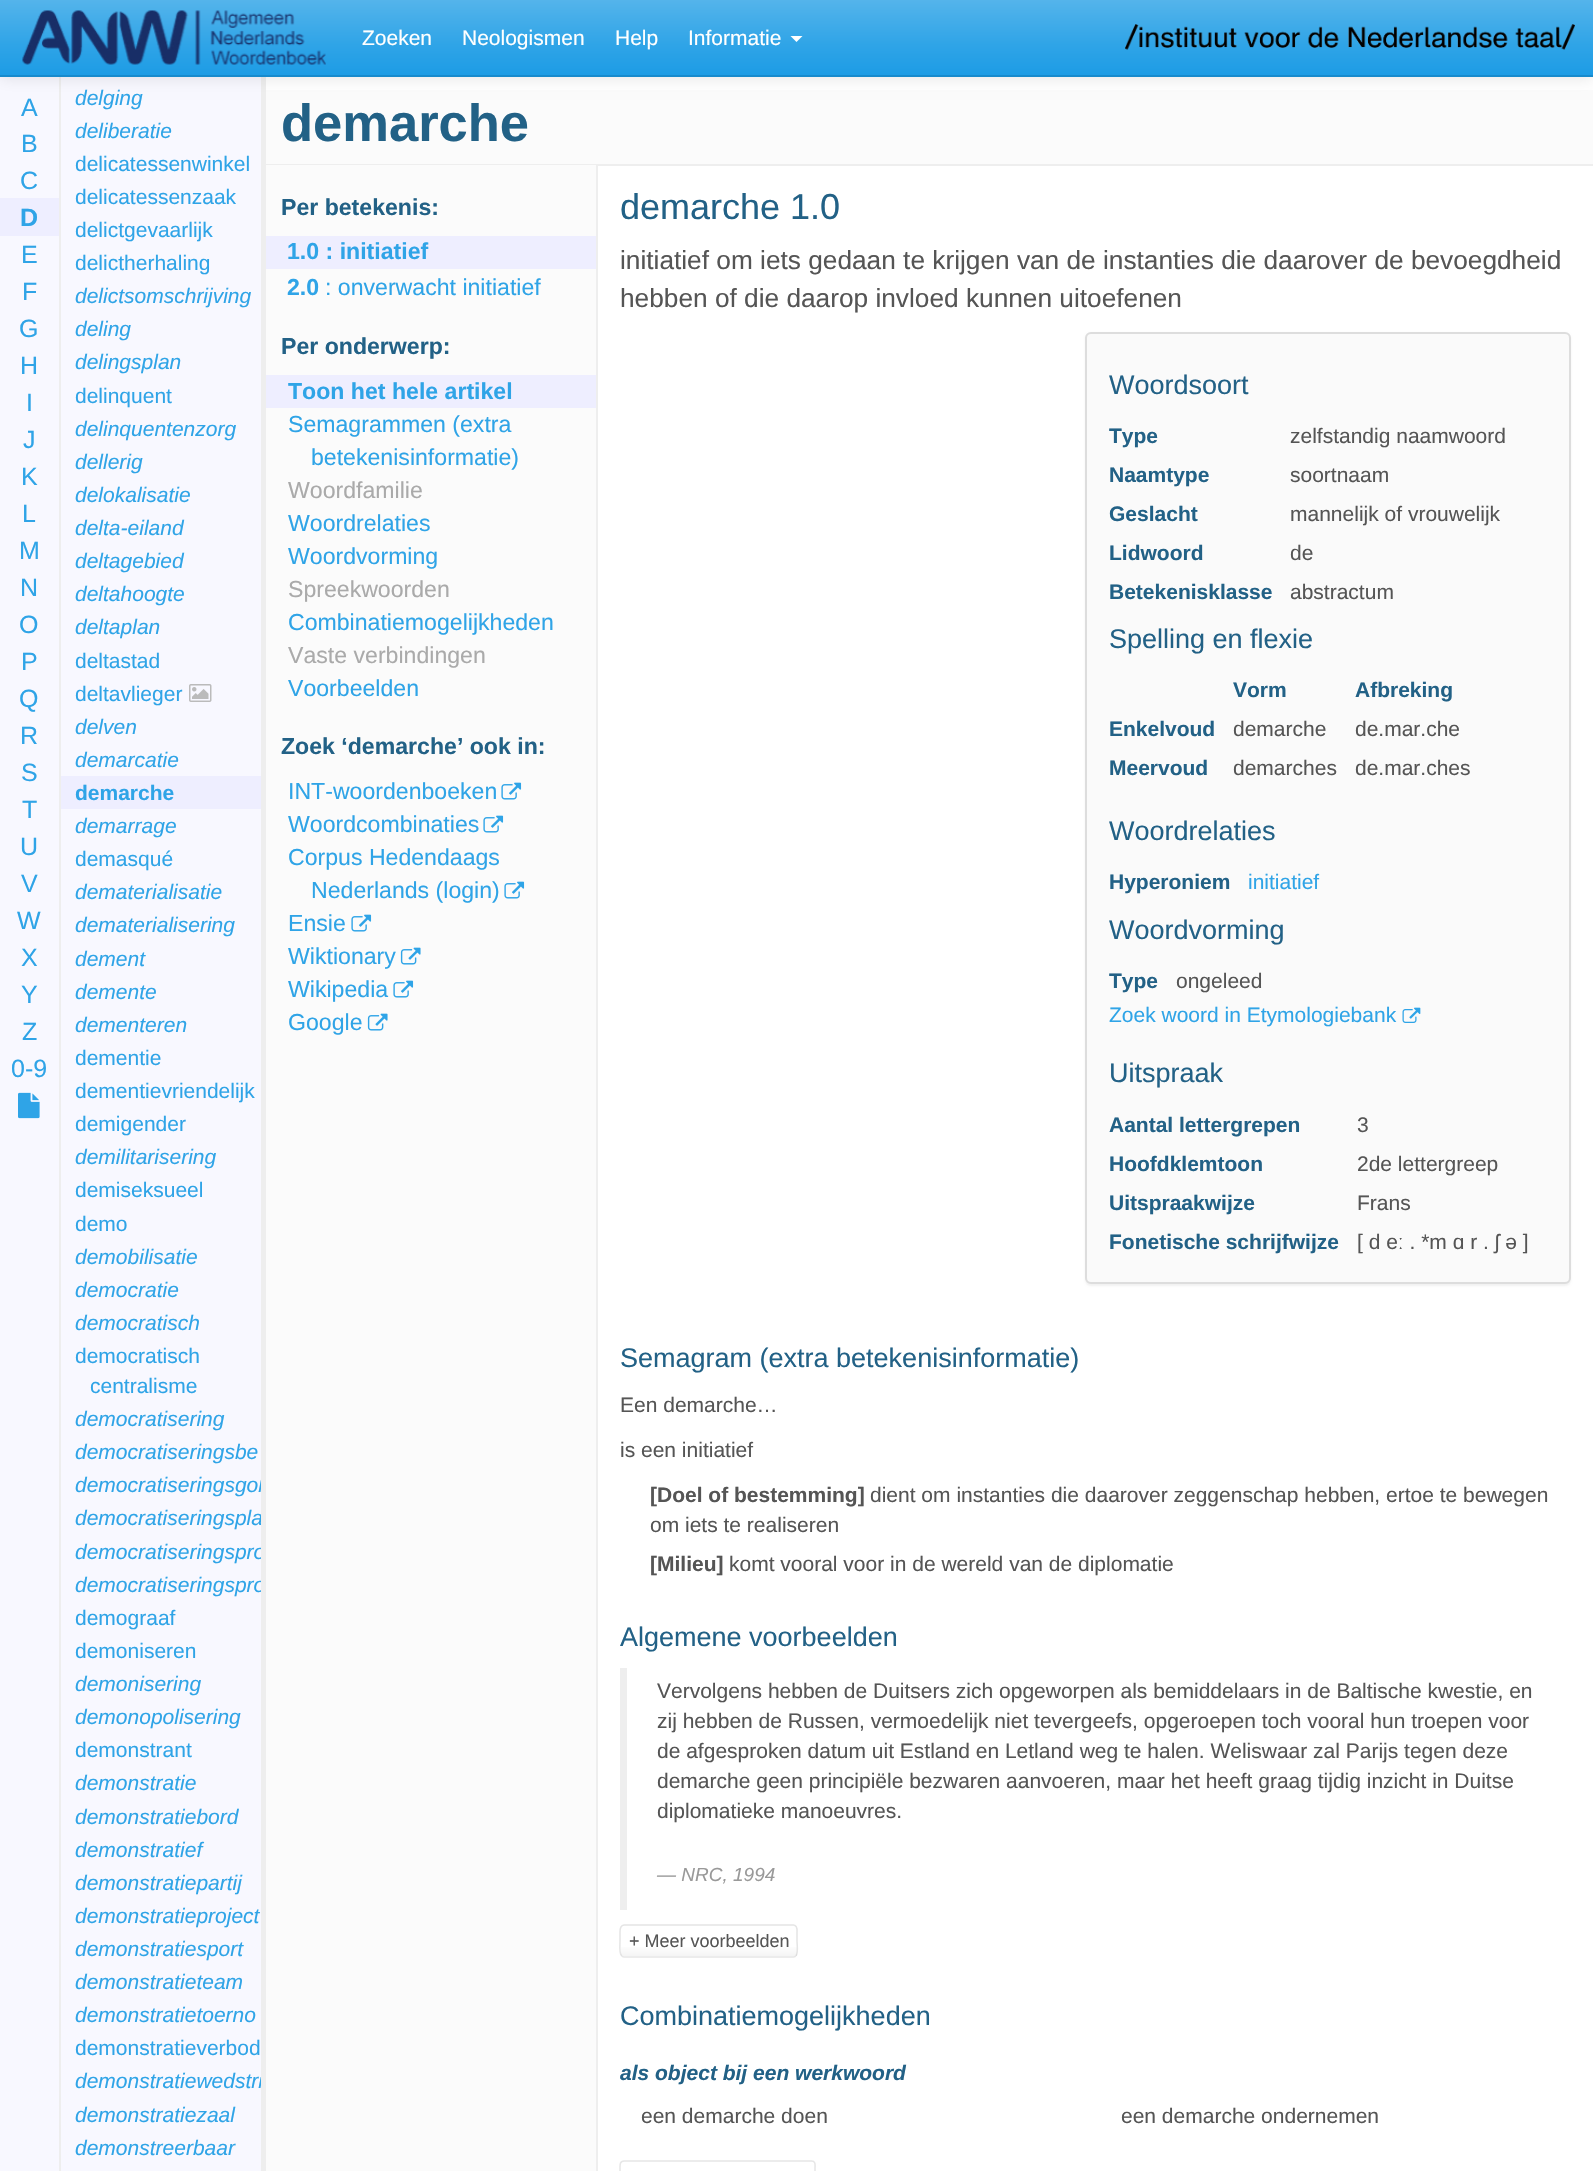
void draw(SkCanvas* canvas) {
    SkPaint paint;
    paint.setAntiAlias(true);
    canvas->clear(0xFFFFFFFF);
    paint.setColor(0xFFF8F8FF);
    canvas->drawRect(SkRect::MakeXYWH(0, 77, 261, 2094), paint);
    paint.setColor(0xFFEEEEEE);
    canvas->drawRect(SkRect::MakeXYWH(261, 77, 5, 2094), paint);
    canvas->drawRect(SkRect::MakeXYWH(59, 77, 2, 2094), paint);
    paint.setColor(0xFFFBFBFB);
    canvas->drawRect(SkRect::MakeXYWH(266, 90, 1327, 74), paint);
    paint.setColor(0x1A000000);
    paint.setMaskFilter(SkMaskFilter::MakeBlur(kNormal_SkBlurStyle, 7.5f));
    canvas->drawRect(SkRect::MakeXYWH(0, 2, 1593, 76), paint);
    paint.setMaskFilter(nullptr);
    {
        const SkColor colors[] = {0xFF54B4EB, 0xFF2FA4E7, 0xFF1D9CE5};
        const float stops[] = {0, 0.6f, 1};
        const SkPoint ends[] = {{797, 0}, {797, 75}};
        paint.setShader(SkGradientShader::MakeLinear(ends, colors, stops, 3, SkTileMode::kClamp));
        paint.setAlpha(255);
    }
    canvas->drawRect(SkRect::MakeXYWH(0, 0, 1593, 75), paint);
    paint.setShader(nullptr);
    paint.setColor(0xFF178ACC);
    canvas->drawRect(SkRect::MakeXYWH(0, 75, 1593, 2), paint);
    canvas->drawImageRect(SkImages::DeferredFromEncodedData(SkData::MakeFromFileName("img1.png")), SkRect::MakeXYWH(22, 10, 304, 55), SkSamplingOptions());
    SkFont font1(fontMgr->matchFamilyStyle("Liberation Sans", SkFontStyle::Normal()), 21);
    font1.setSubpixel(true);
    paint.setColor(0xFFFFFFFF);
    canvas->drawString("Zoeken", 362, 45, font1, paint);
    canvas->drawString("Neologismen", 462, 45, font1, paint);
    canvas->drawString("Help", 615, 45, font1, paint);
    canvas->drawString("Informatie", 688, 45, font1, paint);
    canvas->drawPath(SkPathBuilder().moveTo(790.5f, 36).lineTo(802.5f, 36).lineTo(796.5f, 42).close().detach(), paint);
    canvas->drawImageRect(SkImages::DeferredFromEncodedData(SkData::MakeFromFileName("img2.png")), SkRect::MakeXYWH(1125, 24, 450, 26), SkSamplingOptions());
    SkFont font2(fontMgr->matchFamilyStyle("Liberation Sans", SkFontStyle::Normal()), 25);
    font2.setSubpixel(true);
    paint.setColor(0xFF2FA4E7);
    canvas->drawString("A", 21, 116, font2, paint);
    canvas->drawString("B", 21, 152, font2, paint);
    canvas->drawString("C", 20, 189, font2, paint);
    paint.setColor(0xFFEEEEFF);
    canvas->drawRect(SkRect::MakeXYWH(0, 198, 59, 38), paint);
    SkFont font3(fontMgr->matchFamilyStyle("Liberation Sans", SkFontStyle::Bold()), 25);
    font3.setSubpixel(true);
    paint.setColor(0xFF2FA4E7);
    canvas->drawString("D", 20, 226, font3, paint);
    canvas->drawString("E", 21, 263, font2, paint);
    canvas->drawString("F", 22, 300, font2, paint);
    canvas->drawString("G", 19, 337, font2, paint);
    canvas->drawString("H", 20, 374, font2, paint);
    canvas->drawString("I", 26, 411, font2, paint);
    canvas->drawString("J", 23, 448, font2, paint);
    canvas->drawString("K", 21, 485, font2, paint);
    canvas->drawString("L", 22, 522, font2, paint);
    canvas->drawString("M", 19, 559, font2, paint);
    canvas->drawString("N", 20, 596, font2, paint);
    canvas->drawString("O", 19, 633, font2, paint);
    canvas->drawString("P", 21, 670, font2, paint);
    canvas->drawString("Q", 19, 707, font2, paint);
    canvas->drawString("R", 20, 744, font2, paint);
    canvas->drawString("S", 21, 781, font2, paint);
    canvas->drawString("T", 22, 818, font2, paint);
    canvas->drawString("U", 20, 855, font2, paint);
    canvas->drawString("V", 21, 892, font2, paint);
    canvas->drawString("W", 17, 929, font2, paint);
    canvas->drawString("X", 21, 966, font2, paint);
    canvas->drawString("Y", 21, 1003, font2, paint);
    canvas->drawString("Z", 22, 1040, font2, paint);
    canvas->drawString("0-9", 11, 1077, font2, paint);
    canvas->drawImageRect(SkImages::DeferredFromEncodedData(SkData::MakeFromFileName("img3.png")), SkRect::MakeXYWH(18, 1092, 22, 27), SkSamplingOptions());
    SkFont font4(fontMgr->matchFamilyStyle("Liberation Sans", SkFontStyle::Italic()), 21);
    font4.setSubpixel(true);
    canvas->drawString("delging", 75, 105, font4, paint);
    canvas->drawString("deliberatie", 75, 138, font4, paint);
    canvas->drawString("delicatessenwinkel", 75, 171, font1, paint);
    canvas->drawString("delicatessenzaak", 75, 204, font1, paint);
    canvas->drawString("delictgevaarlijk", 75, 237, font1, paint);
    canvas->drawString("delictherhaling", 75, 270, font1, paint);
    canvas->drawString("delictsomschrijving", 75, 303, font4, paint);
    canvas->drawString("deling", 75, 336, font4, paint);
    canvas->drawString("delingsplan", 75, 369, font4, paint);
    canvas->drawString("delinquent", 75, 403, font1, paint);
    canvas->drawString("delinquentenzorg", 75, 436, font4, paint);
    canvas->drawString("dellerig", 75, 469, font4, paint);
    canvas->drawString("delokalisatie", 75, 502, font4, paint);
    canvas->drawString("delta-eiland", 75, 535, font4, paint);
    canvas->drawString("deltagebied", 75, 568, font4, paint);
    canvas->drawString("deltahoogte", 75, 601, font4, paint);
    canvas->drawString("deltaplan", 75, 634, font4, paint);
    canvas->drawString("deltastad", 75, 668, font1, paint);
    canvas->drawString("deltavlieger", 75, 701, font1, paint);
    canvas->drawImageRect(SkImages::DeferredFromEncodedData(SkData::MakeFromFileName("img4.png")), SkRect::MakeXYWH(189, 684, 23, 18), SkSamplingOptions());
    canvas->drawString("delven", 75, 734, font4, paint);
    canvas->drawString("demarcatie", 75, 767, font4, paint);
    paint.setColor(0xFFEEEEFF);
    canvas->drawRect(SkRect::MakeXYWH(61, 776, 200, 33), paint);
    SkFont font5(fontMgr->matchFamilyStyle("Liberation Sans", SkFontStyle::Bold()), 21);
    font5.setSubpixel(true);
    paint.setColor(0xFF2FA4E7);
    canvas->drawString("demarche", 75, 800, font5, paint);
    canvas->drawString("demarrage", 75, 833, font4, paint);
    canvas->drawString("demasqué", 75, 866, font1, paint);
    canvas->drawString("dematerialisatie", 75, 899, font4, paint);
    canvas->drawString("dematerialisering", 75, 932, font4, paint);
    canvas->drawString("dement", 75, 966, font4, paint);
    canvas->drawString("demente", 75, 999, font4, paint);
    canvas->drawString("dementeren", 75, 1032, font4, paint);
    canvas->drawString("dementie", 75, 1065, font1, paint);
    canvas->drawString("dementievriendelijk", 75, 1098, font1, paint);
    canvas->drawString("demigender", 75, 1131, font1, paint);
    canvas->drawString("demilitarisering", 75, 1164, font4, paint);
    canvas->drawString("demiseksueel", 75, 1197, font1, paint);
    canvas->drawString("demo", 75, 1231, font1, paint);
    canvas->drawString("demobilisatie", 75, 1264, font4, paint);
    canvas->drawString("democratie", 75, 1297, font4, paint);
    canvas->drawString("democratisch", 75, 1330, font4, paint);
    canvas->drawString("democratisch", 75, 1363, font1, paint);
    canvas->drawString("centralisme", 90, 1393, font1, paint);
    canvas->drawString("democratisering", 75, 1426, font4, paint);
    canvas->drawString("democratiseringsbe", 75, 1459, font4, paint);
    canvas->save();
    canvas->clipRect(SkRect::MakeXYWH(60, 77, 201, 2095));
    canvas->drawString("democratiseringsgol", 75, 1492, font4, paint);
    canvas->drawString("democratiseringspla", 75, 1525, font4, paint);
    canvas->drawString("democratiseringspro", 75, 1559, font4, paint);
    canvas->drawString("democratiseringspro", 75, 1592, font4, paint);
    canvas->restore();
    canvas->drawString("demograaf", 75, 1625, font1, paint);
    canvas->drawString("demoniseren", 75, 1658, font1, paint);
    canvas->drawString("demonisering", 75, 1691, font4, paint);
    canvas->drawString("demonopolisering", 75, 1724, font4, paint);
    canvas->drawString("demonstrant", 75, 1757, font1, paint);
    canvas->drawString("demonstratie", 75, 1790, font4, paint);
    canvas->drawString("demonstratiebord", 75, 1824, font4, paint);
    canvas->drawString("demonstratief", 75, 1857, font4, paint);
    canvas->drawString("demonstratiepartij", 75, 1890, font4, paint);
    canvas->drawString("demonstratieproject", 75, 1923, font4, paint);
    canvas->drawString("demonstratiesport", 75, 1956, font4, paint);
    canvas->drawString("demonstratieteam", 75, 1989, font4, paint);
    canvas->drawString("demonstratietoerno", 75, 2022, font4, paint);
    canvas->drawString("demonstratieverbod", 75, 2055, font1, paint);
    canvas->save();
    canvas->clipRect(SkRect::MakeXYWH(60, 77, 201, 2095));
    canvas->drawString("demonstratiewedstri", 75, 2088, font4, paint);
    canvas->restore();
    canvas->drawString("demonstratiezaal", 75, 2122, font4, paint);
    canvas->drawString("demonstreerbaar", 75, 2155, font4, paint);
    paint.setColor(0xFFEEEEEE);
    canvas->drawRect(SkRect::MakeXYWH(266, 164, 1327, 2), paint);
    SkFont font6(fontMgr->matchFamilyStyle("Liberation Sans", SkFontStyle::Bold()), 52.5f);
    font6.setSubpixel(true);
    paint.setColor(0xFF226186);
    canvas->drawString("demarche", 281, 141, font6, paint);
    paint.setColor(0xFFFBFBFB);
    canvas->drawRect(SkRect::MakeXYWH(266, 165, 330, 2006), paint);
    paint.setColor(0xFFEEEEEE);
    canvas->drawRect(SkRect::MakeXYWH(596, 165, 2, 2006), paint);
    SkFont font7(fontMgr->matchFamilyStyle("Liberation Sans", SkFontStyle::Bold()), 23.1f);
    font7.setSubpixel(true);
    paint.setColor(0xFF226186);
    canvas->drawString("Per betekenis:", 281, 215, font7, paint);
    paint.setColor(0xFFEEEEFF);
    canvas->drawRect(SkRect::MakeXYWH(266, 236, 330, 33), paint);
    paint.setColor(0xFF2FA4E7);
    canvas->drawString("1.0 : initiatief", 287, 259, font7, paint);
    canvas->drawString("2.0", 287, 295, font7, paint);
    SkFont font8(fontMgr->matchFamilyStyle("Liberation Sans", SkFontStyle::Normal()), 23.1f);
    font8.setSubpixel(true);
    canvas->drawString(": onverwacht initiatief", 325, 295, font8, paint);
    paint.setColor(0xFF226186);
    canvas->drawString("Per onderwerp:", 281, 354, font7, paint);
    paint.setColor(0xFFEEEEFF);
    canvas->drawRect(SkRect::MakeXYWH(266, 375, 330, 33), paint);
    paint.setColor(0xFF2FA4E7);
    canvas->drawString("Toon het hele artikel", 288, 399, font7, paint);
    canvas->drawString("Semagrammen (extra", 288, 432, font8, paint);
    canvas->drawString("betekenisinformatie)", 311, 465, font8, paint);
    paint.setColor(0xFFAAAAAA);
    canvas->drawString("Woordfamilie", 288, 498, font8, paint);
    paint.setColor(0xFF2FA4E7);
    canvas->drawString("Woordrelaties", 288, 531, font8, paint);
    canvas->drawString("Woordvorming", 288, 564, font8, paint);
    paint.setColor(0xFFAAAAAA);
    canvas->drawString("Spreekwoorden", 288, 597, font8, paint);
    paint.setColor(0xFF2FA4E7);
    canvas->drawString("Combinatiemogelijkheden", 288, 630, font8, paint);
    paint.setColor(0xFFAAAAAA);
    canvas->drawString("Vaste verbindingen", 288, 663, font8, paint);
    paint.setColor(0xFF2FA4E7);
    canvas->drawString("Voorbeelden", 288, 696, font8, paint);
    paint.setColor(0xFF226186);
    canvas->drawString("Zoek ‘demarche’ ook in:", 281, 754, font7, paint);
    paint.setColor(0xFF2FA4E7);
    canvas->drawString("INT-woordenboeken", 288, 799, font8, paint);
    canvas->drawImageRect(SkImages::DeferredFromEncodedData(SkData::MakeFromFileName("img5.png")), SkRect::MakeXYWH(501, 782, 21, 18), SkSamplingOptions());
    canvas->drawString("Woordcombinaties", 288, 832, font8, paint);
    canvas->drawImageRect(SkImages::DeferredFromEncodedData(SkData::MakeFromFileName("img5.png")), SkRect::MakeXYWH(483, 815, 21, 18), SkSamplingOptions());
    canvas->drawString("Corpus Hedendaags", 288, 865, font8, paint);
    canvas->drawString("Nederlands (login)", 311, 898, font8, paint);
    canvas->drawImageRect(SkImages::DeferredFromEncodedData(SkData::MakeFromFileName("img5.png")), SkRect::MakeXYWH(504, 881, 21, 18), SkSamplingOptions());
    canvas->drawString("Ensie", 288, 931, font8, paint);
    canvas->drawImageRect(SkImages::DeferredFromEncodedData(SkData::MakeFromFileName("img5.png")), SkRect::MakeXYWH(351, 914, 21, 18), SkSamplingOptions());
    canvas->drawString("Wiktionary", 288, 964, font8, paint);
    canvas->drawImageRect(SkImages::DeferredFromEncodedData(SkData::MakeFromFileName("img6.png")), SkRect::MakeXYWH(400, 947, 21, 18), SkSamplingOptions());
    canvas->drawString("Wikipedia", 288, 997, font8, paint);
    canvas->drawImageRect(SkImages::DeferredFromEncodedData(SkData::MakeFromFileName("img5.png")), SkRect::MakeXYWH(393, 980, 21, 18), SkSamplingOptions());
    canvas->drawString("Google", 288, 1030, font8, paint);
    canvas->drawImageRect(SkImages::DeferredFromEncodedData(SkData::MakeFromFileName("img6.png")), SkRect::MakeXYWH(367, 1013, 21, 18), SkSamplingOptions());
    SkFont font9(fontMgr->matchFamilyStyle("Liberation Sans", SkFontStyle::Normal()), 36);
    font9.setSubpixel(true);
    paint.setColor(0xFF226186);
    canvas->drawString("demarche 1.0", 620, 219, font9, paint);
    SkFont font10(fontMgr->matchFamilyStyle("Liberation Sans", SkFontStyle::Normal()), 26.25f);
    font10.setSubpixel(true);
    paint.setColor(0xFF555555);
    canvas->drawString("initiatief om iets gedaan te krijgen van de instanties die daarover de bevoegdheid", 620, 269, font10, paint);
    canvas->drawString("hebben of die daarop invloed kunnen uitoefenen", 620, 307, font10, paint);
    paint.setColor(0x0D000000);
    paint.setMaskFilter(SkMaskFilter::MakeBlur(kNormal_SkBlurStyle, 1));
    canvas->drawRoundRect(SkRect::MakeXYWH(1085, 333, 486, 953), 6, 6, paint);
    paint.setMaskFilter(nullptr);
    paint.setColor(0xFFFAFAFA);
    canvas->drawRoundRect(SkRect::MakeXYWH(1086, 333, 484, 950), 5, 5, paint);
    paint.setStyle(SkPaint::kStroke_Style);
    paint.setStrokeWidth(2);
    paint.setColor(0xFFDDDDDD);
    canvas->drawRoundRect(SkRect::MakeXYWH(1086, 333, 484, 950), 5, 5, paint);
    SkFont font11(fontMgr->matchFamilyStyle("Liberation Sans", SkFontStyle::Normal()), 27);
    font11.setSubpixel(true);
    paint.setStyle(SkPaint::kFill_Style);
    paint.setColor(0xFF226186);
    canvas->drawString("Woordsoort", 1109, 394, font11, paint);
    canvas->drawString("Type", 1109, 443, font5, paint);
    paint.setColor(0xFF555555);
    canvas->drawString("zelfstandig naamwoord", 1290, 443, font1, paint);
    paint.setColor(0xFF226186);
    canvas->drawString("Naamtype", 1109, 482, font5, paint);
    paint.setColor(0xFF555555);
    canvas->drawString("soortnaam", 1290, 482, font1, paint);
    paint.setColor(0xFF226186);
    canvas->drawString("Geslacht", 1109, 521, font5, paint);
    paint.setColor(0xFF555555);
    canvas->drawString("mannelijk of vrouwelijk", 1290, 521, font1, paint);
    paint.setColor(0xFF226186);
    canvas->drawString("Lidwoord", 1109, 560, font5, paint);
    paint.setColor(0xFF555555);
    canvas->drawString("de", 1290, 560, font1, paint);
    paint.setColor(0xFF226186);
    canvas->drawString("Betekenisklasse", 1109, 599, font5, paint);
    paint.setColor(0xFF555555);
    canvas->drawString("abstractum", 1290, 599, font1, paint);
    paint.setColor(0xFF226186);
    canvas->drawString("Spelling en flexie", 1109, 648, font11, paint);
    canvas->drawString("Vorm", 1233, 697, font5, paint);
    canvas->drawString("Afbreking", 1355, 697, font5, paint);
    canvas->drawString("Enkelvoud", 1109, 736, font5, paint);
    paint.setColor(0xFF555555);
    canvas->drawString("demarche", 1233, 736, font1, paint);
    canvas->drawString("de.mar.che", 1355, 736, font1, paint);
    paint.setColor(0xFF226186);
    canvas->drawString("Meervoud", 1109, 775, font5, paint);
    paint.setColor(0xFF555555);
    canvas->drawString("demarches", 1233, 775, font1, paint);
    canvas->drawString("de.mar.ches", 1355, 775, font1, paint);
    paint.setColor(0xFF226186);
    canvas->drawString("Woordrelaties", 1109, 840, font11, paint);
    canvas->drawString("Hyperoniem", 1109, 889, font5, paint);
    paint.setColor(0xFF2FA4E7);
    canvas->drawString("initiatief", 1248, 889, font1, paint);
    paint.setColor(0xFF226186);
    canvas->drawString("Woordvorming", 1109, 939, font11, paint);
    canvas->drawString("Type", 1109, 988, font5, paint);
    paint.setColor(0xFF555555);
    canvas->drawString("ongeleed", 1176, 988, font1, paint);
    paint.setColor(0xFF2FA4E7);
    canvas->drawString("Zoek woord in Etymologiebank", 1109, 1022, font1, paint);
    canvas->drawImageRect(SkImages::DeferredFromEncodedData(SkData::MakeFromFileName("img7.png")), SkRect::MakeXYWH(1402, 1007, 19, 16), SkSamplingOptions());
    paint.setColor(0xFF226186);
    canvas->drawString("Uitspraak", 1109, 1082, font11, paint);
    canvas->drawString("Aantal lettergrepen", 1109, 1132, font5, paint);
    paint.setColor(0xFF555555);
    canvas->drawString("3", 1357, 1132, font1, paint);
    paint.setColor(0xFF226186);
    canvas->drawString("Hoofdklemtoon", 1109, 1171, font5, paint);
    paint.setColor(0xFF555555);
    canvas->drawString("2de lettergreep", 1357, 1171, font1, paint);
    paint.setColor(0xFF226186);
    canvas->drawString("Uitspraakwijze", 1109, 1210, font5, paint);
    paint.setColor(0xFF555555);
    canvas->drawString("Frans", 1357, 1210, font1, paint);
    paint.setColor(0xFF226186);
    canvas->drawString("Fonetische schrijfwijze", 1109, 1249, font5, paint);
    paint.setColor(0xFF555555);
    canvas->drawString("[ d eː . *m ɑ r . ʃ ə ]", 1357, 1249, font1, paint);
    paint.setColor(0xFF226186);
    canvas->drawString("Semagram (extra betekenisinformatie)", 620, 1367, font11, paint);
    paint.setColor(0xFF555555);
    canvas->drawString("Een demarche…", 620, 1412, font1, paint);
    canvas->drawString("is een initiatief", 620, 1457, font1, paint);
    canvas->drawString("[Doel of bestemming]", 650, 1502, font5, paint);
    canvas->drawString("dient om instanties die daarover zeggenschap hebben, ertoe te bewegen", 870, 1502, font1, paint);
    canvas->drawString("om iets te realiseren", 650, 1532, font1, paint);
    canvas->drawString("[Milieu]", 650, 1571, font5, paint);
    canvas->drawString("komt vooral voor in de wereld van de diplomatie", 729, 1571, font1, paint);
    paint.setColor(0xFF226186);
    canvas->drawString("Algemene voorbeelden", 620, 1646, font11, paint);
    paint.setColor(0xFFEEEEEE);
    canvas->drawRect(SkRect::MakeXYWH(620, 1668, 7, 242), paint);
    paint.setColor(0xFF555555);
    canvas->drawString("Vervolgens hebben de Duitsers zich opgeworpen als bemiddelaars in de Baltische kwestie, en", 657, 1698, font1, paint);
    canvas->drawString("zij hebben de Russen, vermoedelijk niet tevergeefs, opgeroepen toch vooral hun troepen voor", 657, 1728, font1, paint);
    canvas->drawString("de afgesproken datum uit Estland en Letland weg te halen. Weliswaar zal Parijs tegen deze", 657, 1758, font1, paint);
    canvas->drawString("demarche geen principiële bezwaren aanvoeren, maar het heeft graag tijdig inzicht in Duitse", 657, 1788, font1, paint);
    canvas->drawString("diplomatieke manoeuvres.", 657, 1818, font1, paint);
    SkFont font12(fontMgr->matchFamilyStyle("Liberation Sans", SkFontStyle::Italic()), 19);
    font12.setSubpixel(true);
    paint.setColor(0xFF999999);
    canvas->drawString("— NRC, 1994", 657, 1881, font12, paint);
    {
        const SkColor colors[] = {0xFFFFFFFF, 0xFFFFFFFF, 0xFFF5F5F5};
        const float stops[] = {0, 0.6f, 1};
        const SkPoint ends[] = {{709, 1926}, {709, 1956}};
        paint.setShader(SkGradientShader::MakeLinear(ends, colors, stops, 3, SkTileMode::kClamp));
        paint.setAlpha(255);
    }
    canvas->drawRect(SkRect::MakeXYWH(621, 1947, 176, 9), paint);
    paint.setStyle(SkPaint::kStroke_Style);
    paint.setStrokeWidth(1.5f);
    paint.setShader(nullptr);
    paint.setColor(0xFFE6E6E6);
    canvas->drawPath(SkPathBuilder().moveTo(796, 1955.5f).cubicTo(795.5f, 1956.5f, 794.5f, 1957, 793.5f, 1957).lineTo(624, 1957).cubicTo(623, 1957, 622, 1956.5f, 621.5f, 1955.5f).detach(), paint);
    paint.setColor(0x1A000000);
    canvas->drawPath(SkPathBuilder().moveTo(621.5f, 1955.5f).cubicTo(619, 1953.5f, 620, 1944, 620, 1941).lineTo(620, 1933).cubicTo(620, 1930, 619.5f, 1925.5f, 624, 1925).lineTo(793.5f, 1925).cubicTo(798, 1925.5f, 797, 1930, 797, 1933).lineTo(797, 1941).cubicTo(797, 1944, 798.5f, 1953.5f, 796, 1955.5f).detach(), paint);
    SkFont font13(fontMgr->matchFamilyStyle("Liberation Sans", SkFontStyle::Normal()), 18);
    font13.setSubpixel(true);
    paint.setStyle(SkPaint::kFill_Style);
    paint.setColor(0xFF555555);
    canvas->drawString("+ Meer voorbeelden", 629, 1947, font13, paint);
    paint.setColor(0xFF226186);
    canvas->drawString("Combinatiemogelijkheden", 620, 2025, font11, paint);
    SkFont font14(fontMgr->matchFamilyStyle("Liberation Sans", SkFontStyle::BoldItalic()), 21);
    font14.setSubpixel(true);
    canvas->drawString("als object bij een werkwoord", 620, 2080, font14, paint);
    paint.setColor(0xFF555555);
    canvas->drawString("een demarche doen", 641, 2123, font1, paint);
    canvas->drawString("een demarche ondernemen", 1121, 2123, font1, paint);
    paint.setStyle(SkPaint::kStroke_Style);
    paint.setColor(0xFFE6E6E6);
    canvas->drawPath(SkPathBuilder().moveTo(621.5f, 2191).cubicTo(619, 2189, 620, 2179.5f, 620, 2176.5f).lineTo(620, 2168.5f).cubicTo(620, 2165.5f, 619.5f, 2161, 624, 2161).lineTo(811.5f, 2161).cubicTo(816, 2161, 815, 2165.5f, 815, 2168.5f).lineTo(815, 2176.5f).cubicTo(815, 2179.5f, 816.5f, 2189, 814, 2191).detach(), paint);
}
